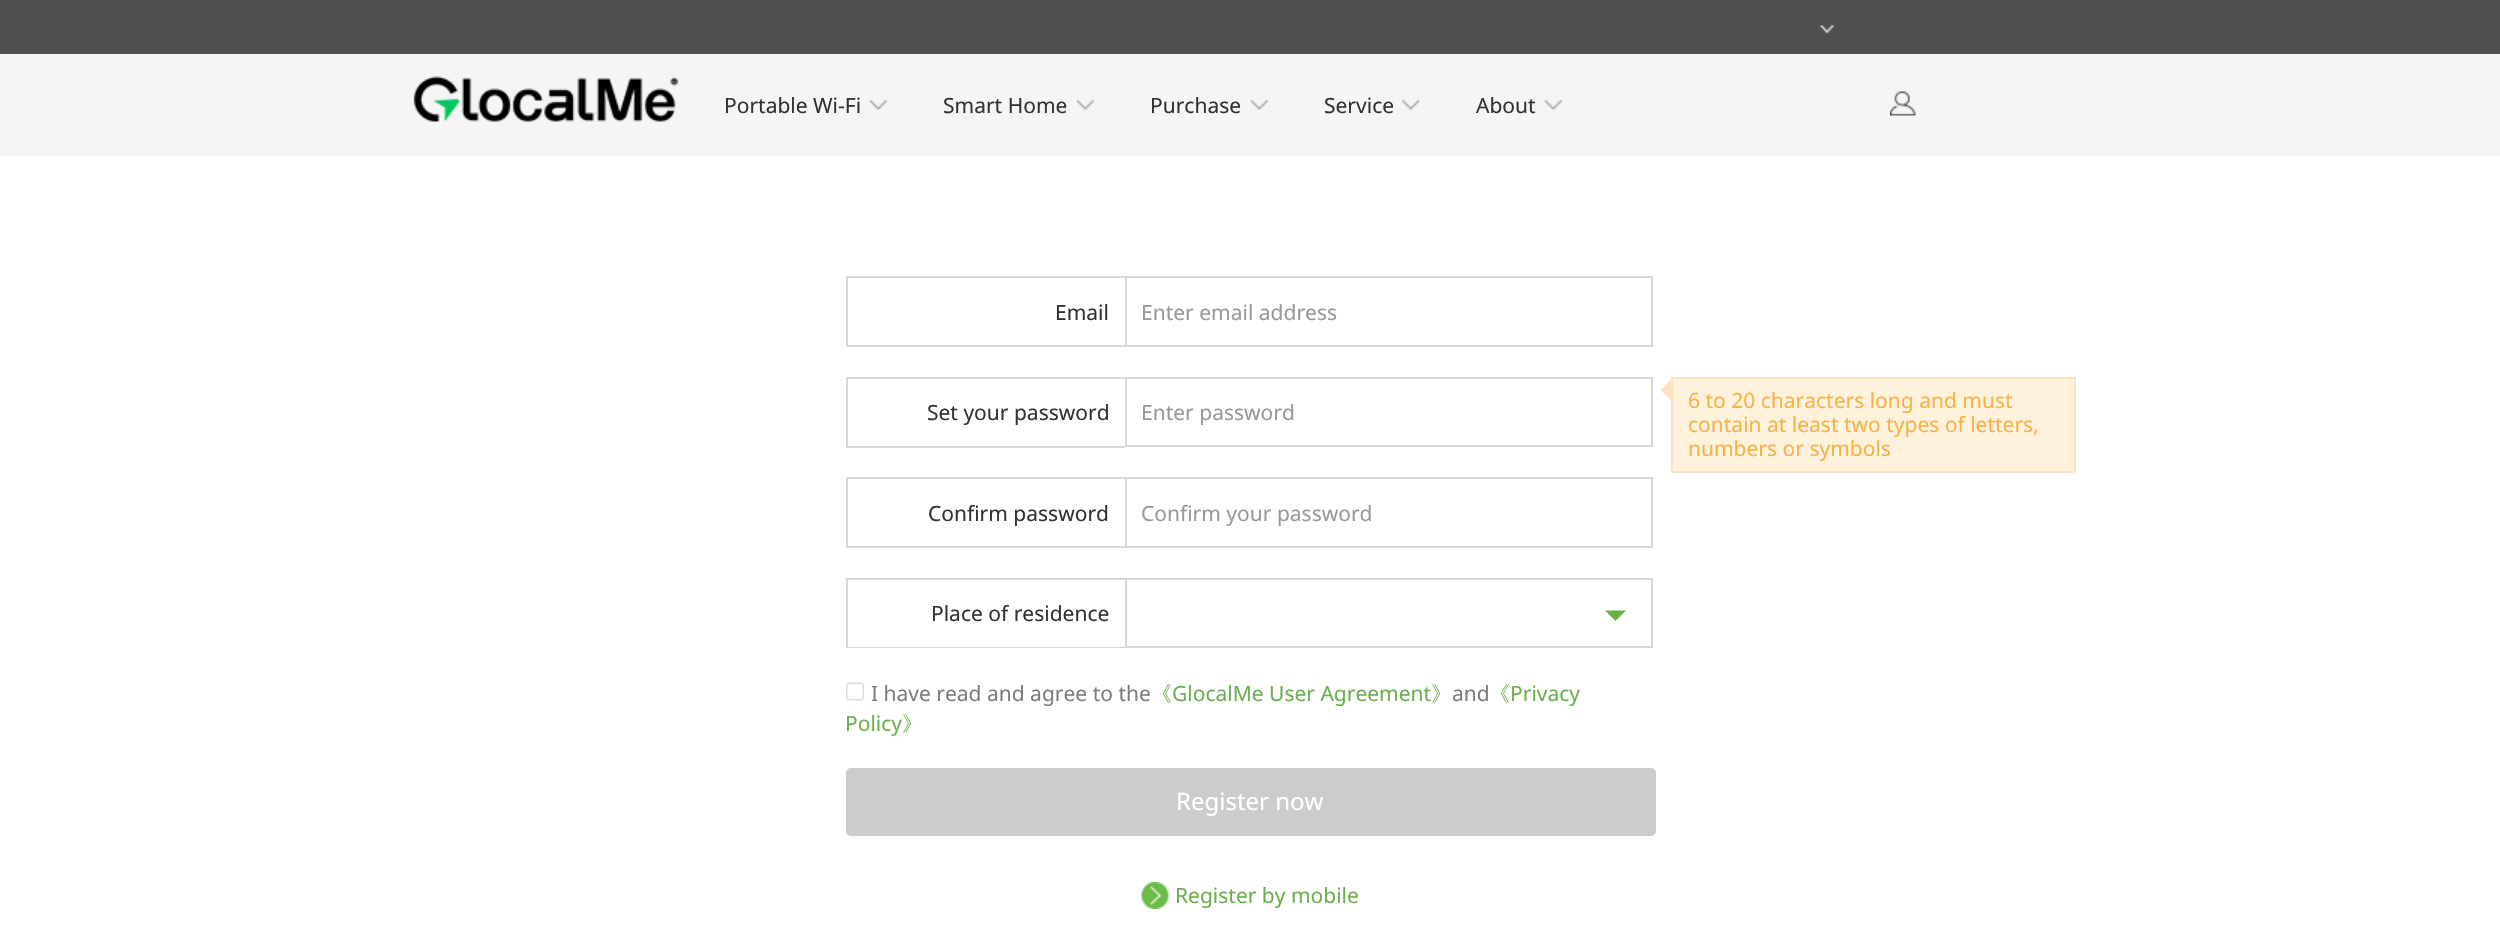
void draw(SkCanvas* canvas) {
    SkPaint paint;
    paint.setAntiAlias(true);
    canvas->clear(0xFFFFFFFF);
    paint.setColor(0xFF4F4F4F);
    canvas->drawRect(SkRect::MakeXYWH(0, 0, 2500, 54), paint);
    canvas->drawImageRect(SkImages::DeferredFromEncodedData(SkData::MakeFromFileName("img1.png")), SkRect::MakeXYWH(1819, 25, 16, 9), SkSamplingOptions());
    paint.setColor(0xFFF5F5F5);
    canvas->drawRect(SkRect::MakeXYWH(0, 54, 2500, 102), paint);
    canvas->drawImageRect(SkImages::DeferredFromEncodedData(SkData::MakeFromFileName("img2.png")), SkRect::MakeXYWH(413, 76, 266, 46), SkSamplingOptions());
    SkFont font1(fontMgr->matchFamilyStyle("Noto Sans", SkFontStyle::Normal()), 21);
    font1.setSubpixel(true);
    paint.setColor(0xFF333333);
    canvas->drawString("Portable Wi-Fi", 724, 113, font1, paint);
    canvas->drawImageRect(SkImages::DeferredFromEncodedData(SkData::MakeFromFileName("img3.png")), SkRect::MakeXYWH(869, 99, 19, 11), SkSamplingOptions());
    canvas->drawString("Smart Home", 943, 113, font1, paint);
    canvas->drawImageRect(SkImages::DeferredFromEncodedData(SkData::MakeFromFileName("img3.png")), SkRect::MakeXYWH(1076, 99, 19, 11), SkSamplingOptions());
    canvas->drawString("Purchase", 1150, 113, font1, paint);
    canvas->drawImageRect(SkImages::DeferredFromEncodedData(SkData::MakeFromFileName("img3.png")), SkRect::MakeXYWH(1250, 99, 19, 11), SkSamplingOptions());
    canvas->drawString("Service", 1324, 113, font1, paint);
    canvas->drawImageRect(SkImages::DeferredFromEncodedData(SkData::MakeFromFileName("img4.png")), SkRect::MakeXYWH(1401, 99, 19, 11), SkSamplingOptions());
    canvas->drawString("About", 1476, 113, font1, paint);
    canvas->drawImageRect(SkImages::DeferredFromEncodedData(SkData::MakeFromFileName("img3.png")), SkRect::MakeXYWH(1544, 99, 19, 11), SkSamplingOptions());
    canvas->drawImageRect(SkImages::DeferredFromEncodedData(SkData::MakeFromFileName("img5.png")), SkRect::MakeXYWH(1890, 91, 26, 25), SkSamplingOptions());
    paint.setColor(0xFFD8D8D8);
    canvas->drawRect(SkRect::MakeXYWH(846, 276, 279, 2), paint);
    canvas->drawRect(SkRect::MakeXYWH(846, 345, 279, 2), paint);
    canvas->drawRect(SkRect::MakeXYWH(846, 276, 2, 71), paint);
    paint.setColor(0xFF333333);
    canvas->drawString("Email", 1055, 320, font1, paint);
    paint.setStyle(SkPaint::kStroke_Style);
    paint.setStrokeWidth(2);
    paint.setColor(0xFFD8D8D8);
    canvas->drawRect(SkRect::MakeXYWH(1126, 277, 526, 69), paint);
    paint.setStyle(SkPaint::kFill_Style);
    paint.setColor(0xFF999999);
    canvas->drawString("Enter email address", 1141, 320, font1, paint);
    paint.setColor(0xFFD8D8D8);
    canvas->drawRect(SkRect::MakeXYWH(846, 377, 279, 2), paint);
    canvas->drawRect(SkRect::MakeXYWH(846, 446, 279, 2), paint);
    canvas->drawRect(SkRect::MakeXYWH(846, 377, 2, 70), paint);
    paint.setColor(0xFF333333);
    canvas->drawString("Set your password", 927, 420, font1, paint);
    paint.setStyle(SkPaint::kStroke_Style);
    paint.setColor(0xFFD8D8D8);
    canvas->drawRect(SkRect::MakeXYWH(1126, 378, 526, 68), paint);
    paint.setStyle(SkPaint::kFill_Style);
    paint.setColor(0xFF999999);
    canvas->drawString("Enter password", 1141, 420, font1, paint);
    paint.setColor(0xFFFFF2DD);
    canvas->drawRect(SkRect::MakeXYWH(1672, 378, 403, 94), paint);
    paint.setStyle(SkPaint::kStroke_Style);
    paint.setColor(0xFFF9E4C2);
    canvas->drawRect(SkRect::MakeXYWH(1672, 378, 403, 94), paint);
    paint.setStyle(SkPaint::kFill_Style);
    canvas->drawPath(SkPathBuilder().moveTo(1672.5f, 378).lineTo(1672.5f, 402).lineTo(1660.5f, 390).close().detach(), paint);
    paint.setColor(0xFFF7B346);
    canvas->drawString("6 to 20 characters long and must", 1688, 408, font1, paint);
    canvas->drawString("contain at least two types of letters,", 1688, 432, font1, paint);
    canvas->drawString("numbers or symbols", 1688, 456, font1, paint);
    paint.setColor(0xFFD8D8D8);
    canvas->drawRect(SkRect::MakeXYWH(846, 477, 279, 2), paint);
    canvas->drawRect(SkRect::MakeXYWH(846, 546, 279, 2), paint);
    canvas->drawRect(SkRect::MakeXYWH(846, 477, 2, 71), paint);
    paint.setColor(0xFF333333);
    canvas->drawString("Confirm password", 928, 521, font1, paint);
    paint.setStyle(SkPaint::kStroke_Style);
    paint.setColor(0xFFD8D8D8);
    canvas->drawRect(SkRect::MakeXYWH(1126, 478, 526, 69), paint);
    paint.setStyle(SkPaint::kFill_Style);
    paint.setColor(0xFF999999);
    canvas->drawString("Confirm your password", 1141, 521, font1, paint);
    paint.setColor(0xFFD8D8D8);
    canvas->drawRect(SkRect::MakeXYWH(846, 578, 279, 2), paint);
    canvas->drawRect(SkRect::MakeXYWH(846, 647, 279, 1), paint);
    canvas->drawRect(SkRect::MakeXYWH(846, 578, 2, 70), paint);
    paint.setColor(0xFF333333);
    canvas->drawString("Place of residence", 931, 621, font1, paint);
    paint.setStyle(SkPaint::kStroke_Style);
    paint.setColor(0xFFD7D7D7);
    canvas->drawRect(SkRect::MakeXYWH(1126, 579, 526, 68), paint);
    paint.setStyle(SkPaint::kFill_Style);
    paint.setColor(0xFF69B046);
    canvas->drawPath(SkPathBuilder().moveTo(1605, 610.5f).lineTo(1626, 610.5f).lineTo(1615.5f, 621).close().detach(), paint);
    canvas->drawImageRect(SkImages::DeferredFromEncodedData(SkData::MakeFromFileName("img6.png")), SkRect::MakeXYWH(846, 682, 18, 19), SkSamplingOptions());
    paint.setColor(0xFF7D7D7D);
    canvas->drawString("I have read and agree to the", 871, 701, font1, paint);
    SkFont font2(fontMgr->matchFamilyStyle("WenQuanYi Zen Hei", SkFontStyle(500, SkFontStyle::kNormal_Width, SkFontStyle::kUpright_Slant)), 21);
    font2.setSubpixel(true);
    paint.setColor(0xFF6BB04D);
    canvas->drawString("《", 1151, 701, font2, paint);
    canvas->drawString("GlocalMe User Agreement", 1172, 701, font1, paint);
    canvas->drawString("》", 1431, 701, font2, paint);
    paint.setColor(0xFF7D7D7D);
    canvas->drawString("and", 1452, 701, font1, paint);
    paint.setColor(0xFF6BB04D);
    canvas->drawString("《", 1489, 701, font2, paint);
    canvas->drawString("Privacy", 1510, 701, font1, paint);
    canvas->drawString("Policy", 845, 731, font1, paint);
    canvas->drawString("》", 902, 731, font2, paint);
    paint.setColor(0xFFCCCCCC);
    canvas->drawRoundRect(SkRect::MakeXYWH(846, 768, 810, 68), 5, 5, paint);
    SkFont font3(fontMgr->matchFamilyStyle("Noto Sans", SkFontStyle::Normal()), 24);
    font3.setSubpixel(true);
    paint.setColor(0xFFFFFFFF);
    canvas->drawString("Register now", 1176, 810, font3, paint);
    canvas->drawImageRect(SkImages::DeferredFromEncodedData(SkData::MakeFromFileName("img7.png")), SkRect::MakeXYWH(1141, 882, 28, 27), SkSamplingOptions());
    paint.setColor(0xFF6BB04D);
    canvas->drawString("Register by mobile", 1175, 903, font1, paint);
}
